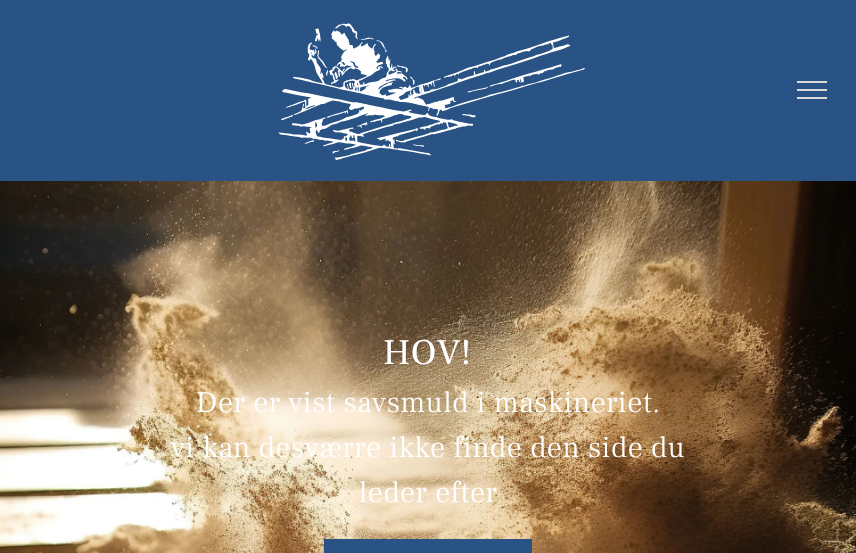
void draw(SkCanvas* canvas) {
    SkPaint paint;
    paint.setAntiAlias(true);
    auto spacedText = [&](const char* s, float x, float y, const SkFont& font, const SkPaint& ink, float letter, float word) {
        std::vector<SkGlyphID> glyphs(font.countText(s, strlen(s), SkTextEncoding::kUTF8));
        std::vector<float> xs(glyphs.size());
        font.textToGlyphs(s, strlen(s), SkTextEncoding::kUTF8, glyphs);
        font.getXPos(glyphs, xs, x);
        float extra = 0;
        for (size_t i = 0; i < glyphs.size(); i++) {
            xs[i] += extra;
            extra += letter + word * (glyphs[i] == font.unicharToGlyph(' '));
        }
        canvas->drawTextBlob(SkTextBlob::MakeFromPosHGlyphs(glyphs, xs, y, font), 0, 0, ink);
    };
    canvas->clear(0xFFFFFFFF);
    paint.setColor(0xFF2A5385);
    canvas->drawRect(SkRect::MakeXYWH(0, 0, 856, 181), paint);
    canvas->drawImageRect(SkImages::DeferredFromEncodedData(SkData::MakeFromFileName("img1.png")), SkRect::MakeXYWH(278, 23, 307, 137), SkSamplingOptions());
    paint.setColor(0xFFD9D9D9);
    canvas->drawRect(SkRect::MakeXYWH(797, 81, 30, 2), paint);
    canvas->drawRect(SkRect::MakeXYWH(797, 89, 30, 2), paint);
    canvas->drawRect(SkRect::MakeXYWH(797, 97, 30, 2), paint);
    canvas->drawImageRect(SkImages::DeferredFromEncodedData(SkData::MakeFromFileName("img2.png")), SkRect::MakeXYWH(0, 181, 856, 372), SkSamplingOptions());
    SkFont font1(fontMgr->matchFamilyStyle("Frank Ruhl Libre", SkFontStyle::Normal()), 36);
    font1.setSubpixel(true);
    paint.setColor(0xFFFFFFFF);
    spacedText("HOV!", 383, 364, font1, paint, 0.5f, 0);
    SkFont font2(fontMgr->matchFamilyStyle("Frank Ruhl Libre", SkFontStyle(300, SkFontStyle::kNormal_Width, SkFontStyle::kUpright_Slant)), 30);
    font2.setSubpixel(true);
    spacedText("Der er vist savsmuld i maskineriet.", 196, 412, font2, paint, 0.6f, 0);
    spacedText("vi kan desværre ikke finde den side du", 171, 457, font2, paint, 0.6f, 0);
    spacedText("leder efter", 359, 502, font2, paint, 0.6f, 0);
    paint.setColor(0xFF2A5385);
    canvas->drawRect(SkRect::MakeXYWH(324, 539, 208, 14), paint);
}
